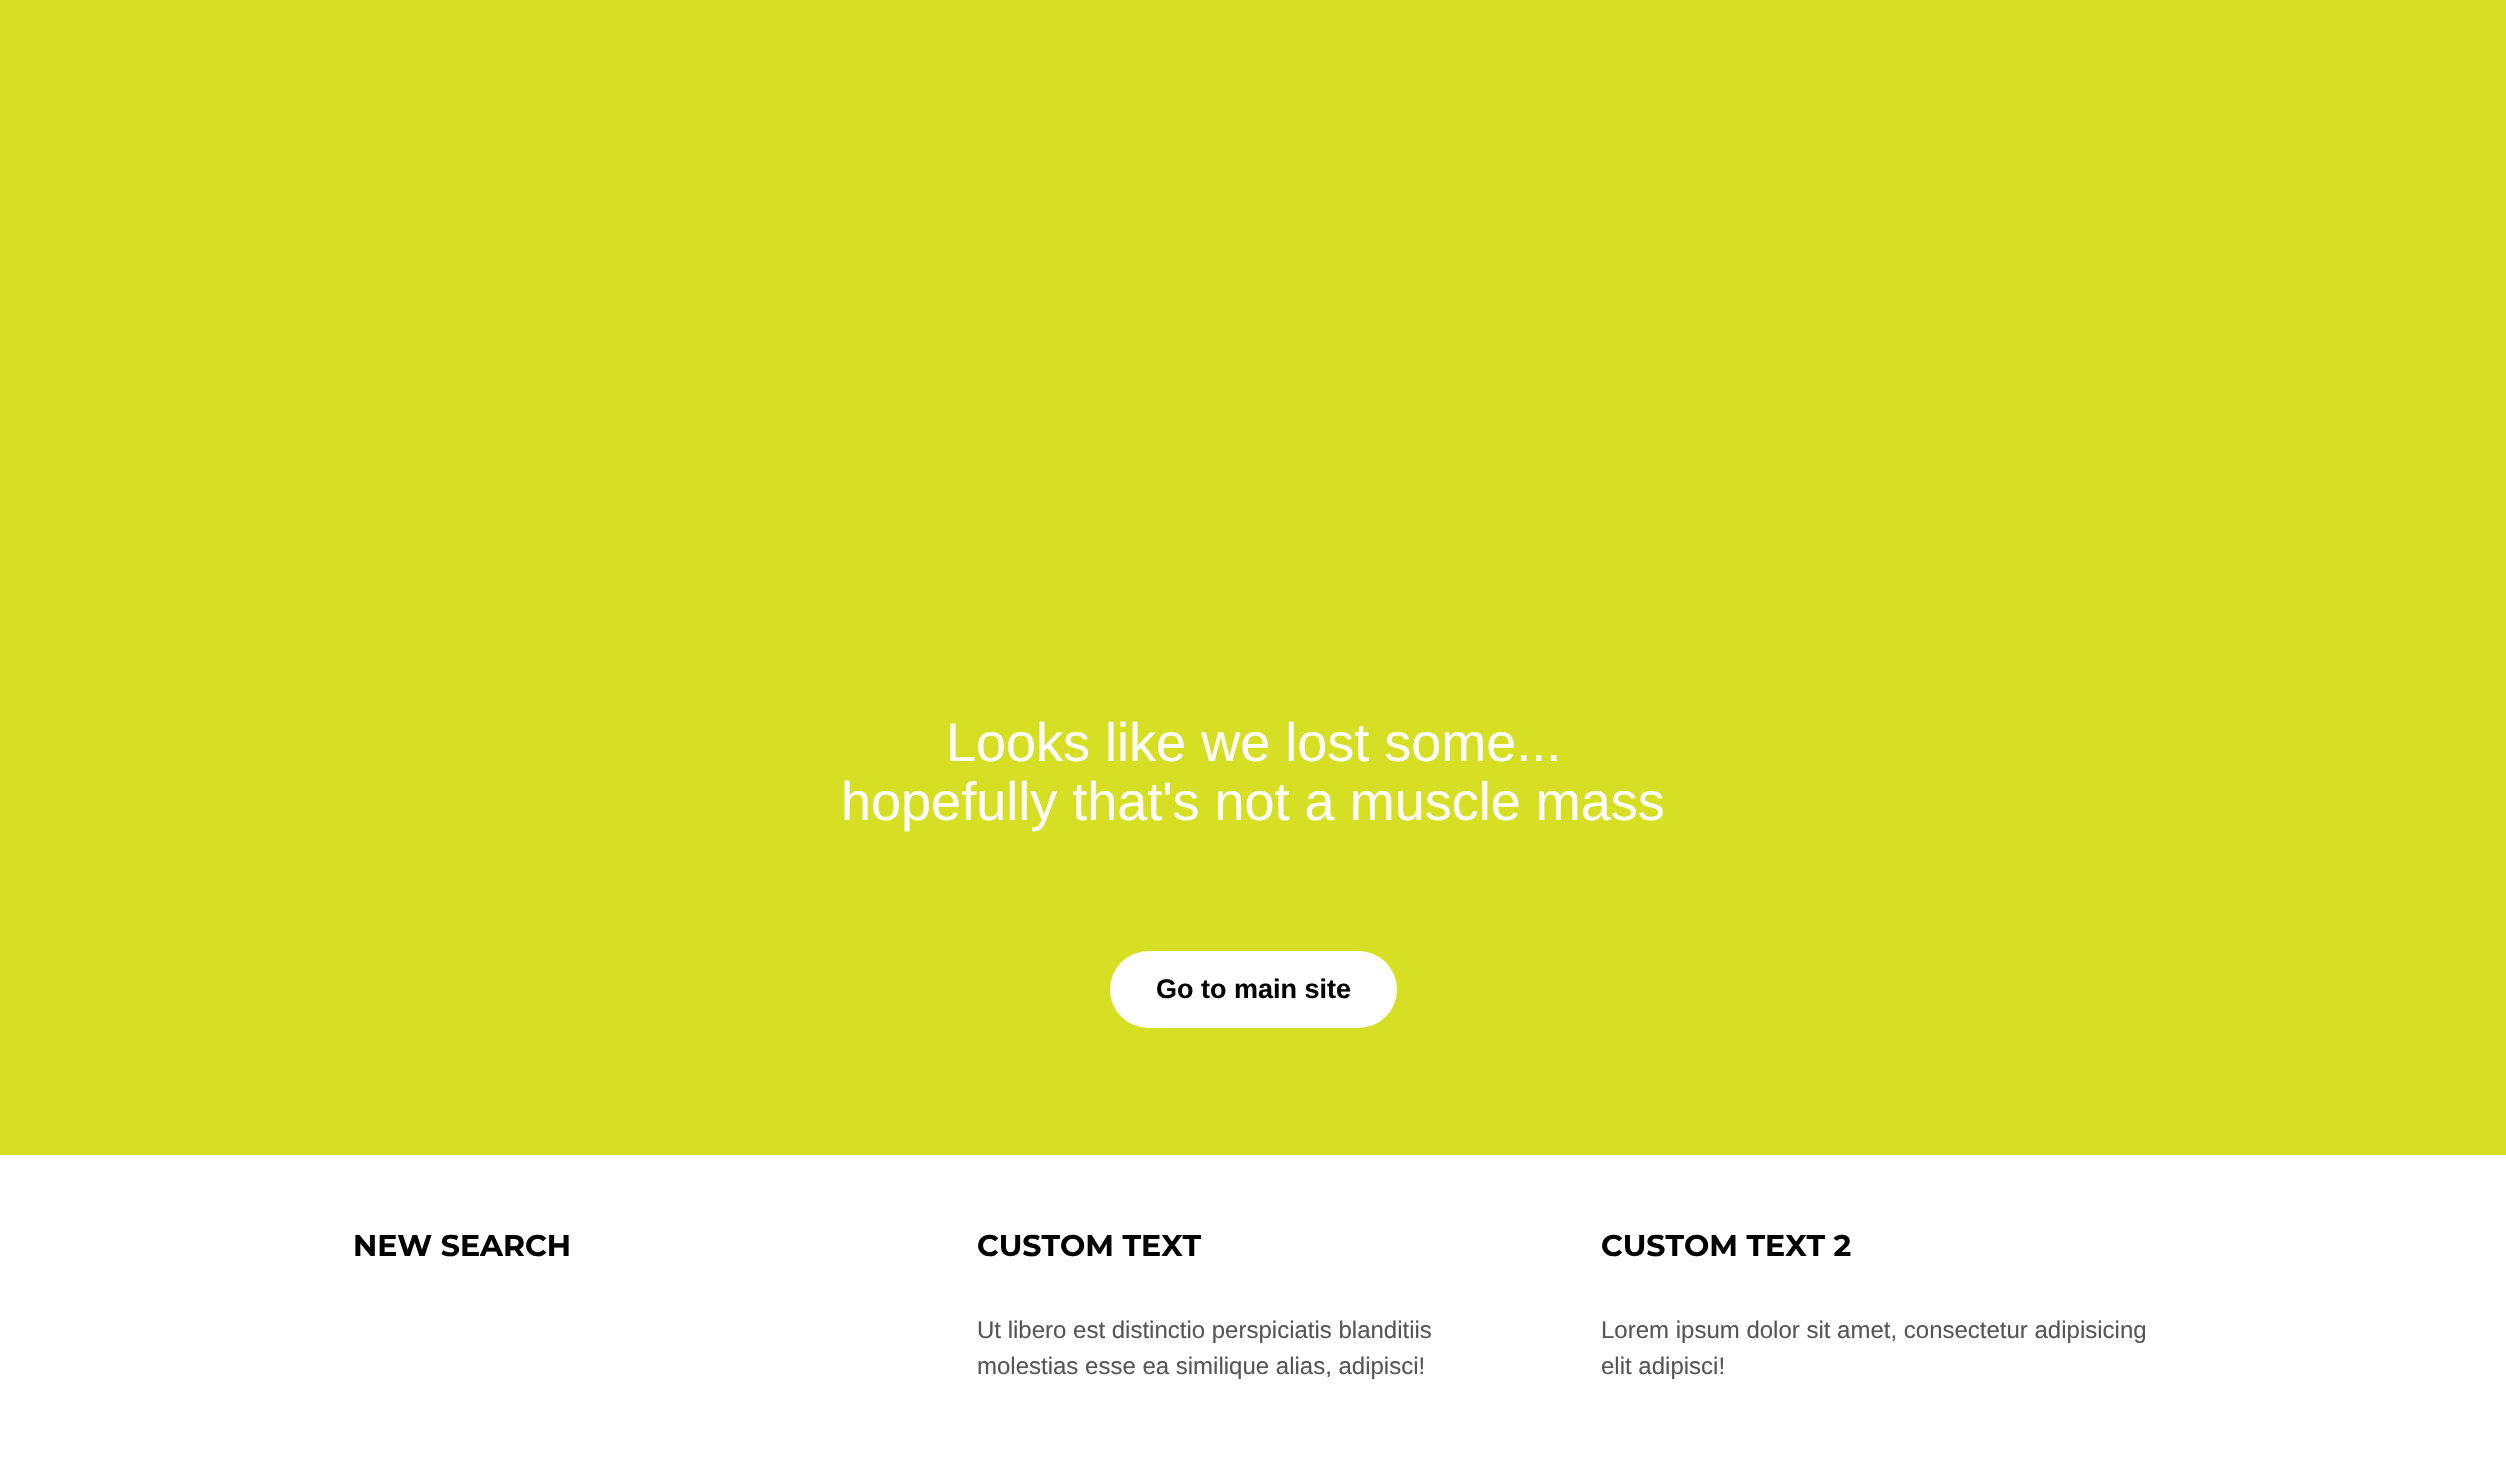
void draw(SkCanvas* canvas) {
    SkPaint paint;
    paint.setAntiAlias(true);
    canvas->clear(0xFFFFFFFF);
    paint.setColor(0xFFD6DF23);
    canvas->drawRect(SkRect::MakeXYWH(0, 0, 2506, 1155), paint);
    SkFont font1(fontMgr->matchFamilyStyle("Liberation Sans", SkFontStyle::Normal()), 54);
    font1.setSubpixel(true);
    paint.setColor(0xFFFFFFFF);
    canvas->drawString("Looks like we lost some...", 946, 761, font1, paint);
    canvas->drawString("hopefully that's not a muscle mass", 841, 820, font1, paint);
    canvas->drawRoundRect(SkRect::MakeXYWH(1110, 951, 287, 77), 38.5f, 38.5f, paint);
    SkFont font2(fontMgr->matchFamilyStyle("Liberation Sans", SkFontStyle::Bold()), 27);
    font2.setSubpixel(true);
    paint.setColor(0xFF000000);
    canvas->drawString("Go to main site", 1156, 998, font2, paint);
    SkFont font3(fontMgr->matchFamilyStyle("Montserrat", SkFontStyle::Bold()), 30);
    font3.setSubpixel(true);
    canvas->drawString("NEW SEARCH", 353, 1256, font3, paint);
    canvas->drawString("CUSTOM TEXT", 977, 1256, font3, paint);
    SkFont font4(fontMgr->matchFamilyStyle("Liberation Sans", SkFontStyle::Normal()), 24);
    font4.setSubpixel(true);
    paint.setColor(0xFF555555);
    canvas->drawString("Ut libero est distinctio perspiciatis blanditiis", 977, 1338, font4, paint);
    canvas->drawString("molestias esse ea similique alias, adipisci!", 977, 1374, font4, paint);
    paint.setColor(0xFF000000);
    canvas->drawString("CUSTOM TEXT 2", 1601, 1256, font3, paint);
    paint.setColor(0xFF555555);
    canvas->drawString("Lorem ipsum dolor sit amet, consectetur adipisicing", 1601, 1338, font4, paint);
    canvas->drawString("elit adipisci!", 1601, 1374, font4, paint);
}
